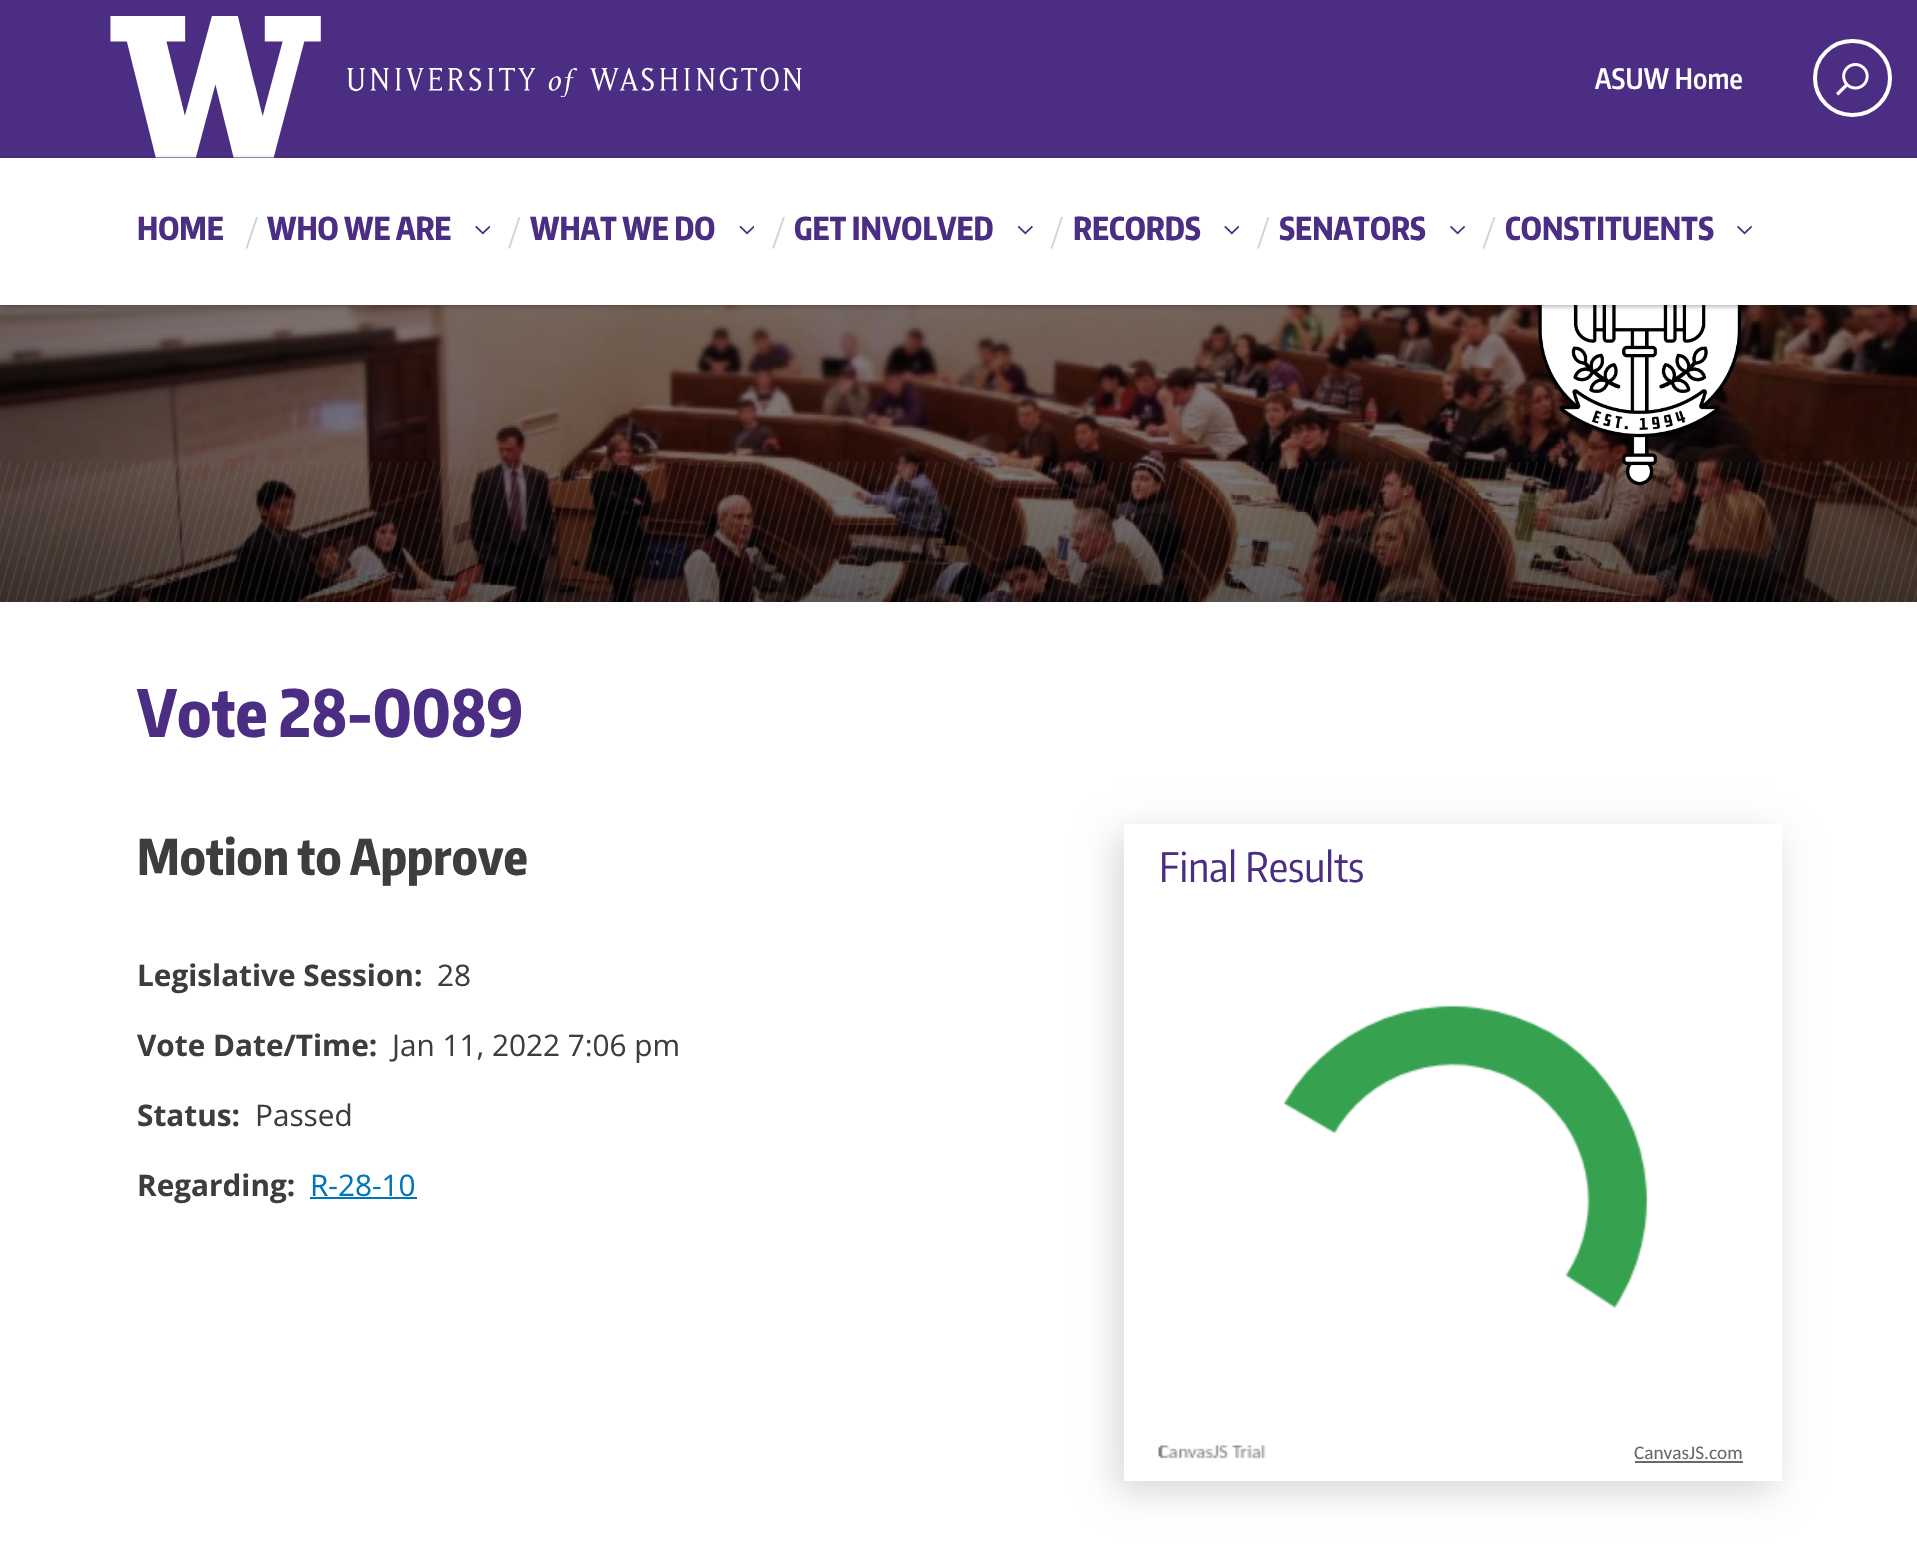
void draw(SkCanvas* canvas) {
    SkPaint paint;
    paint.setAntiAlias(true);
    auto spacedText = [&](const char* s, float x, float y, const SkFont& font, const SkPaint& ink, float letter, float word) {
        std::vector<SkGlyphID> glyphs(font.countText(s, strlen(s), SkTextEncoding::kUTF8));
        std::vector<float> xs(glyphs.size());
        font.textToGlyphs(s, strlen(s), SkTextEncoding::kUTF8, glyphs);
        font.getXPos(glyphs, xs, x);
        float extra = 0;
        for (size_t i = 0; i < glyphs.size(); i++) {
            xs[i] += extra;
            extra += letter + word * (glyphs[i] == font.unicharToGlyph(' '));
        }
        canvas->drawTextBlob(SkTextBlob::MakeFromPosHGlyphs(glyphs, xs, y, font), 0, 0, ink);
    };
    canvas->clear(0xFFFFFFFF);
    paint.setColor(0xFF4B2E83);
    canvas->drawRect(SkRect::MakeXYWH(0, 0, 1917, 158), paint);
    canvas->drawImageRect(SkImages::DeferredFromEncodedData(SkData::MakeFromFileName("img1.png")), SkRect::MakeXYWH(110, 16, 211, 142), SkSamplingOptions());
    canvas->drawImageRect(SkImages::DeferredFromEncodedData(SkData::MakeFromFileName("img2.png")), SkRect::MakeXYWH(347, 67, 455, 30), SkSamplingOptions());
    SkFont font1(fontMgr->matchFamilyStyle("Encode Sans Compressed", SkFontStyle(600, SkFontStyle::kNormal_Width, SkFontStyle::kUpright_Slant)), 28);
    font1.setSubpixel(true);
    paint.setColor(0xFFFFFFFF);
    spacedText("ASUW Home", 1595, 89, font1, paint, 0.25f, 0);
    paint.setStyle(SkPaint::kStroke_Style);
    paint.setStrokeWidth(4);
    canvas->drawRoundRect(SkRect::MakeXYWH(1815, 41, 75, 74), 37, 37, paint);
    canvas->drawImageRect(SkImages::DeferredFromEncodedData(SkData::MakeFromFileName("img3.png")), SkRect::MakeXYWH(1836, 63, 33, 33), SkSamplingOptions());
    canvas->drawImageRect(SkImages::DeferredFromEncodedData(SkData::MakeFromFileName("img8.png")), SkRect::MakeXYWH(0, 305, 1917, 297), SkSamplingOptions());
    canvas->drawImageRect(SkImages::DeferredFromEncodedData(SkData::MakeFromFileName("img9.png")), SkRect::MakeXYWH(0, 462, 1917, 140), SkSamplingOptions());
    canvas->drawImageRect(SkImages::DeferredFromEncodedData(SkData::MakeFromFileName("img10.png")), SkRect::MakeXYWH(1538, 305, 204, 181), SkSamplingOptions());
    paint.setStyle(SkPaint::kFill_Style);
    paint.setColor(0x66221919);
    paint.setMaskFilter(SkMaskFilter::MakeBlur(kNormal_SkBlurStyle, 2.5f));
    canvas->drawRect(SkRect::MakeXYWH(0, 159, 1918, 147), paint);
    paint.setMaskFilter(nullptr);
    paint.setColor(0xFFFFFFFF);
    canvas->drawRect(SkRect::MakeXYWH(0, 158, 1917, 147), paint);
    SkFont font2(fontMgr->matchFamilyStyle("Encode Sans Compressed", SkFontStyle(800, SkFontStyle::kNormal_Width, SkFontStyle::kUpright_Slant)), 31.5f);
    font2.setSubpixel(true);
    paint.setColor(0xFF4B2E83);
    canvas->drawString("HOME", 137, 240, font2, paint);
    paint.setColor(0xFFD1D3D4);
    canvas->drawPath(SkPathBuilder().moveTo(256, 217).lineTo(245.5f, 248.5f).lineTo(247.5f, 248.5f).lineTo(258, 217).close().detach(), paint);
    paint.setColor(0xFF4B2E83);
    canvas->drawString("WHO WE ARE", 267, 240, font2, paint);
    canvas->drawImageRect(SkImages::DeferredFromEncodedData(SkData::MakeFromFileName("img4.png")), SkRect::MakeXYWH(475, 225, 15, 10), SkSamplingOptions());
    paint.setColor(0xFFD1D3D4);
    canvas->drawPath(SkPathBuilder().moveTo(518.5f, 217).lineTo(508, 248.5f).lineTo(510, 248.5f).lineTo(520.5f, 217).close().detach(), paint);
    paint.setColor(0xFF4B2E83);
    canvas->drawString("WHAT WE DO", 530, 240, font2, paint);
    canvas->drawImageRect(SkImages::DeferredFromEncodedData(SkData::MakeFromFileName("img5.png")), SkRect::MakeXYWH(739, 225, 15, 10), SkSamplingOptions());
    paint.setColor(0xFFD1D3D4);
    canvas->drawPath(SkPathBuilder().moveTo(783, 217).lineTo(772, 248.5f).lineTo(774, 248.5f).lineTo(785, 217).close().detach(), paint);
    paint.setColor(0xFF4B2E83);
    canvas->drawString("GET INVOLVED", 794, 240, font2, paint);
    canvas->drawImageRect(SkImages::DeferredFromEncodedData(SkData::MakeFromFileName("img6.png")), SkRect::MakeXYWH(1017, 225, 16, 10), SkSamplingOptions());
    paint.setColor(0xFFD1D3D4);
    canvas->drawPath(SkPathBuilder().moveTo(1061, 217).lineTo(1050.5f, 248.5f).lineTo(1052.5f, 248.5f).lineTo(1063, 217).close().detach(), paint);
    paint.setColor(0xFF4B2E83);
    canvas->drawString("RECORDS", 1073, 240, font2, paint);
    canvas->drawImageRect(SkImages::DeferredFromEncodedData(SkData::MakeFromFileName("img4.png")), SkRect::MakeXYWH(1224, 225, 15, 10), SkSamplingOptions());
    paint.setColor(0xFFD1D3D4);
    canvas->drawPath(SkPathBuilder().moveTo(1267.5f, 217).lineTo(1257, 248.5f).lineTo(1259, 248.5f).lineTo(1269.5f, 217).close().detach(), paint);
    paint.setColor(0xFF4B2E83);
    canvas->drawString("SENATORS", 1279, 240, font2, paint);
    canvas->drawImageRect(SkImages::DeferredFromEncodedData(SkData::MakeFromFileName("img7.png")), SkRect::MakeXYWH(1450, 225, 15, 10), SkSamplingOptions());
    paint.setColor(0xFFD1D3D4);
    canvas->drawPath(SkPathBuilder().moveTo(1493.5f, 217).lineTo(1482.5f, 248.5f).lineTo(1484.5f, 248.5f).lineTo(1495.5f, 217).close().detach(), paint);
    paint.setColor(0xFF4B2E83);
    canvas->drawString("CONSTITUENTS", 1505, 240, font2, paint);
    canvas->drawImageRect(SkImages::DeferredFromEncodedData(SkData::MakeFromFileName("img7.png")), SkRect::MakeXYWH(1737, 225, 15, 10), SkSamplingOptions());
    SkFont font3(fontMgr->matchFamilyStyle("Encode Sans Compressed", SkFontStyle(800, SkFontStyle::kNormal_Width, SkFontStyle::kUpright_Slant)), 64.75f);
    font3.setSubpixel(true);
    canvas->drawString("Vote 28-0089", 137, 737, font3, paint);
    SkFont font4(fontMgr->matchFamilyStyle("Encode Sans Compressed", SkFontStyle(800, SkFontStyle::kNormal_Width, SkFontStyle::kUpright_Slant)), 49);
    font4.setSubpixel(true);
    paint.setColor(0xFF3D3D3D);
    canvas->drawString("Motion to Approve", 137, 875, font4, paint);
    SkFont font5(fontMgr->matchFamilyStyle("Open Sans", SkFontStyle::Bold()), 29.75f);
    font5.setSubpixel(true);
    canvas->drawString("Legislative Session:", 137, 986, font5, paint);
    SkFont font6(fontMgr->matchFamilyStyle("Open Sans", SkFontStyle::Normal()), 29.75f);
    font6.setSubpixel(true);
    canvas->drawString("28", 437, 986, font6, paint);
    canvas->drawString("Vote Date/Time:", 137, 1056, font5, paint);
    canvas->drawString("Jan 11, 2022 7:06 pm", 392, 1056, font6, paint);
    canvas->drawString("Status:", 137, 1126, font5, paint);
    canvas->drawString("Passed", 255, 1126, font6, paint);
    canvas->drawString("Regarding:", 137, 1196, font5, paint);
    paint.setColor(0xFF0074BB);
    canvas->drawString("R-28-10", 310, 1196, font6, paint);
    canvas->drawRect(SkRect::MakeXYWH(310, 1197, 107, 2), paint);
    paint.setColor(0x29000000);
    paint.setMaskFilter(SkMaskFilter::MakeBlur(kNormal_SkBlurStyle, 17.5f));
    canvas->drawRect(SkRect::MakeXYWH(1117, 835, 658, 656), paint);
    paint.setMaskFilter(nullptr);
    paint.setColor(0xFFFFFFFF);
    canvas->drawRect(SkRect::MakeXYWH(1124, 824, 658, 657), paint);
    SkFont font7(fontMgr->matchFamilyStyle("Encode Sans Condensed", SkFontStyle::Normal()), 40.25f);
    font7.setSubpixel(true);
    paint.setColor(0xFF4B2E83);
    canvas->drawString("Final Results", 1159, 882, font7, paint);
    canvas->drawImageRect(SkImages::DeferredFromEncodedData(SkData::MakeFromFileName("img11.png")), SkRect::MakeXYWH(1158, 1005, 490, 454), SkSamplingOptions());
    SkFont font8(fontMgr->matchFamilyStyle("Carlito", SkFontStyle::Normal()), 19.25f);
    font8.setSubpixel(true);
    paint.setColor(0xFF696969);
    canvas->drawString("CanvasJS.com", 1634, 1459, font8, paint);
    canvas->drawRect(SkRect::MakeXYWH(1635, 1461, 108, 2), paint);
}
